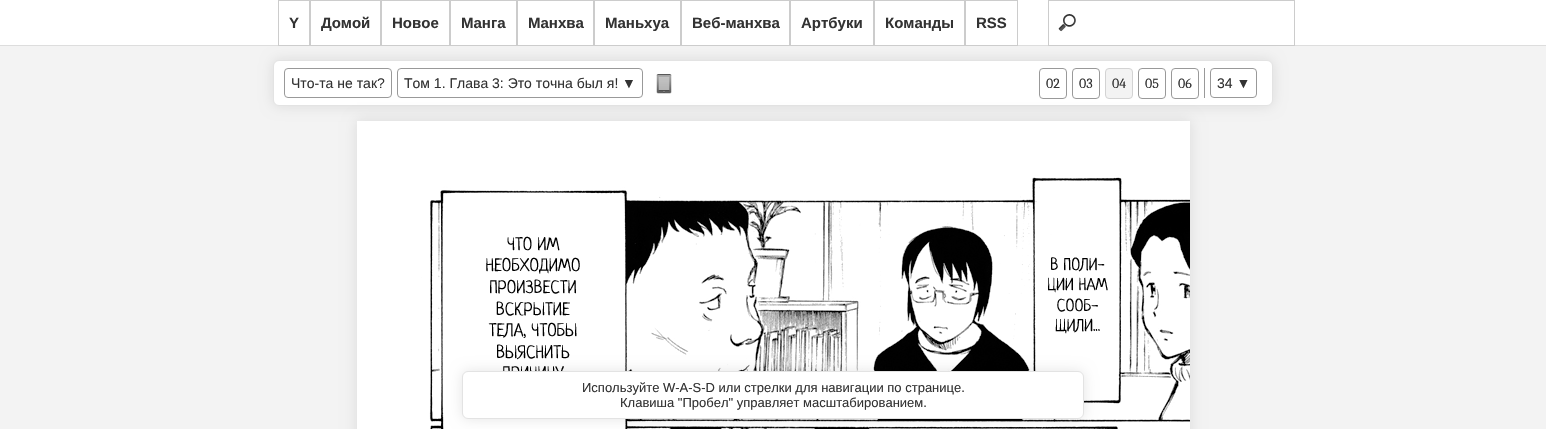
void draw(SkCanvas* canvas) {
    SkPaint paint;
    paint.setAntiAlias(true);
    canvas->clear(0xFFF3F3F3);
    paint.setColor(0x1A000000);
    paint.setMaskFilter(SkMaskFilter::MakeBlur(kNormal_SkBlurStyle, 6.5f));
    canvas->drawRoundRect(SkRect::MakeXYWH(273, 60, 1000, 46), 6, 6, paint);
    paint.setMaskFilter(nullptr);
    paint.setColor(0xFFFFFFFF);
    canvas->drawRect(SkRect::MakeXYWH(0, 0, 1546, 45), paint);
    paint.setColor(0xFFDDDDDD);
    canvas->drawRect(SkRect::MakeXYWH(0, 45, 1546, 1), paint);
    paint.setStyle(SkPaint::kStroke_Style);
    paint.setStrokeWidth(1);
    paint.setColor(0xFFCCCCCC);
    canvas->drawRect(SkRect::MakeXYWH(278.5f, 0.5f, 31, 45), paint);
    SkFont font1(fontMgr->matchFamilyStyle("Liberation Sans", SkFontStyle::Bold()), 15);
    font1.setSubpixel(true);
    paint.setStyle(SkPaint::kFill_Style);
    paint.setColor(0xFF333333);
    canvas->drawString("Y", 289, 28, font1, paint);
    paint.setStyle(SkPaint::kStroke_Style);
    paint.setColor(0xFFCCCCCC);
    canvas->drawRect(SkRect::MakeXYWH(310.5f, 0.5f, 70, 45), paint);
    paint.setStyle(SkPaint::kFill_Style);
    paint.setColor(0xFF333333);
    canvas->drawString("Домой", 321, 28, font1, paint);
    paint.setStyle(SkPaint::kStroke_Style);
    paint.setColor(0xFFCCCCCC);
    canvas->drawRect(SkRect::MakeXYWH(381.5f, 0.5f, 68, 45), paint);
    paint.setStyle(SkPaint::kFill_Style);
    paint.setColor(0xFF333333);
    canvas->drawString("Новое", 392, 28, font1, paint);
    paint.setStyle(SkPaint::kStroke_Style);
    paint.setColor(0xFFCCCCCC);
    canvas->drawRect(SkRect::MakeXYWH(450.5f, 0.5f, 66, 45), paint);
    paint.setStyle(SkPaint::kFill_Style);
    paint.setColor(0xFF333333);
    canvas->drawString("Манга", 461, 28, font1, paint);
    paint.setStyle(SkPaint::kStroke_Style);
    paint.setColor(0xFFCCCCCC);
    canvas->drawRect(SkRect::MakeXYWH(517.5f, 0.5f, 76, 45), paint);
    paint.setStyle(SkPaint::kFill_Style);
    paint.setColor(0xFF333333);
    canvas->drawString("Манхва", 528, 28, font1, paint);
    paint.setStyle(SkPaint::kStroke_Style);
    paint.setColor(0xFFCCCCCC);
    canvas->drawRect(SkRect::MakeXYWH(594.5f, 0.5f, 86, 45), paint);
    paint.setStyle(SkPaint::kFill_Style);
    paint.setColor(0xFF333333);
    canvas->drawString("Маньхуа", 605, 28, font1, paint);
    paint.setStyle(SkPaint::kStroke_Style);
    paint.setColor(0xFFCCCCCC);
    canvas->drawRect(SkRect::MakeXYWH(681.5f, 0.5f, 108, 45), paint);
    paint.setStyle(SkPaint::kFill_Style);
    paint.setColor(0xFF333333);
    canvas->drawString("Веб-манхва", 692, 28, font1, paint);
    paint.setStyle(SkPaint::kStroke_Style);
    paint.setColor(0xFFCCCCCC);
    canvas->drawRect(SkRect::MakeXYWH(790.5f, 0.5f, 83, 45), paint);
    paint.setStyle(SkPaint::kFill_Style);
    paint.setColor(0xFF333333);
    canvas->drawString("Артбуки", 801, 28, font1, paint);
    paint.setStyle(SkPaint::kStroke_Style);
    paint.setColor(0xFFCCCCCC);
    canvas->drawRect(SkRect::MakeXYWH(874.5f, 0.5f, 90, 45), paint);
    paint.setStyle(SkPaint::kFill_Style);
    paint.setColor(0xFF333333);
    canvas->drawString("Команды", 885, 28, font1, paint);
    paint.setStyle(SkPaint::kStroke_Style);
    paint.setColor(0xFFCCCCCC);
    canvas->drawRect(SkRect::MakeXYWH(965.5f, 0.5f, 52, 45), paint);
    paint.setStyle(SkPaint::kFill_Style);
    paint.setColor(0xFF333333);
    canvas->drawString("RSS", 976, 28, font1, paint);
    canvas->drawImageRect(SkImages::DeferredFromEncodedData(SkData::MakeFromFileName("img1.png")), SkRect::MakeXYWH(1058, 14, 18, 18), SkSamplingOptions());
    paint.setStyle(SkPaint::kStroke_Style);
    paint.setColor(0xFFCCCCCC);
    canvas->drawRect(SkRect::MakeXYWH(1048.5f, 0.5f, 246, 45), paint);
    paint.setStyle(SkPaint::kFill_Style);
    paint.setColor(0xFFFFFFFF);
    canvas->drawRoundRect(SkRect::MakeXYWH(273.5f, 60.5f, 999, 45), 5.5f, 5.5f, paint);
    paint.setStyle(SkPaint::kStroke_Style);
    paint.setColor(0xFFE3E3E3);
    canvas->drawRoundRect(SkRect::MakeXYWH(273.5f, 60.5f, 999, 45), 5.5f, 5.5f, paint);
    paint.setColor(0xFF999999);
    canvas->drawRoundRect(SkRect::MakeXYWH(284.5f, 68.5f, 107, 29), 3.5f, 3.5f, paint);
    SkFont font2(fontMgr->matchFamilyStyle("Liberation Sans", SkFontStyle::Normal()), 14);
    font2.setSubpixel(true);
    paint.setStyle(SkPaint::kFill_Style);
    paint.setColor(0xFF333333);
    canvas->drawString("Что-та не так?", 291, 88, font2, paint);
    paint.setStyle(SkPaint::kStroke_Style);
    paint.setColor(0xFF999999);
    canvas->drawRoundRect(SkRect::MakeXYWH(397.5f, 68.5f, 245, 29), 3.5f, 3.5f, paint);
    paint.setStyle(SkPaint::kFill_Style);
    paint.setColor(0xFF333333);
    canvas->drawString("Том 1. Глава 3: Это точна был я!", 404, 88, font2, paint);
    canvas->drawString("▼", 622, 88, font2, paint);
    canvas->drawImageRect(SkImages::DeferredFromEncodedData(SkData::MakeFromFileName("img2.png")), SkRect::MakeXYWH(656, 74, 16, 20), SkSamplingOptions());
    paint.setStyle(SkPaint::kStroke_Style);
    paint.setColor(0xFF999999);
    canvas->drawRoundRect(SkRect::MakeXYWH(1039.5f, 68.5f, 27, 30), 3.5f, 3.5f, paint);
    SkFont font3(fontMgr->matchFamilyStyle("Caladea", SkFontStyle::Normal()), 14);
    font3.setSubpixel(true);
    paint.setStyle(SkPaint::kFill_Style);
    paint.setColor(0xFF333333);
    canvas->drawString("02", 1046, 88, font3, paint);
    paint.setStyle(SkPaint::kStroke_Style);
    paint.setColor(0xFF999999);
    canvas->drawRoundRect(SkRect::MakeXYWH(1072.5f, 68.5f, 27, 30), 3.5f, 3.5f, paint);
    paint.setStyle(SkPaint::kFill_Style);
    paint.setColor(0xFF333333);
    canvas->drawString("03", 1079, 88, font3, paint);
    paint.setColor(0xFFF3F3F3);
    canvas->drawRoundRect(SkRect::MakeXYWH(1105.5f, 68.5f, 27, 30), 3.5f, 3.5f, paint);
    paint.setStyle(SkPaint::kStroke_Style);
    paint.setColor(0xFFD3D3D3);
    canvas->drawRoundRect(SkRect::MakeXYWH(1105.5f, 68.5f, 27, 30), 3.5f, 3.5f, paint);
    paint.setStyle(SkPaint::kFill_Style);
    paint.setColor(0xFF333333);
    canvas->drawString("04", 1112, 88, font3, paint);
    paint.setStyle(SkPaint::kStroke_Style);
    paint.setColor(0xFF999999);
    canvas->drawRoundRect(SkRect::MakeXYWH(1138.5f, 68.5f, 27, 30), 3.5f, 3.5f, paint);
    paint.setStyle(SkPaint::kFill_Style);
    paint.setColor(0xFF333333);
    canvas->drawString("05", 1145, 88, font3, paint);
    paint.setStyle(SkPaint::kStroke_Style);
    paint.setColor(0xFF999999);
    canvas->drawRoundRect(SkRect::MakeXYWH(1171.5f, 68.5f, 27, 30), 3.5f, 3.5f, paint);
    paint.setStyle(SkPaint::kFill_Style);
    paint.setColor(0xFF333333);
    canvas->drawString("06", 1178, 88, font3, paint);
    paint.setColor(0xFF999999);
    canvas->drawRect(SkRect::MakeXYWH(1204, 68, 1, 30), paint);
    paint.setStyle(SkPaint::kStroke_Style);
    canvas->drawRoundRect(SkRect::MakeXYWH(1210.5f, 68.5f, 46, 29), 3.5f, 3.5f, paint);
    paint.setStyle(SkPaint::kFill_Style);
    paint.setColor(0xFF333333);
    canvas->drawString("34 ▼", 1217, 88, font2, paint);
    paint.setColor(0x1A000000);
    paint.setMaskFilter(SkMaskFilter::MakeBlur(kNormal_SkBlurStyle, 6.5f));
    canvas->drawRect(SkRect::MakeXYWH(357, 121, 833, 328), paint);
    paint.setMaskFilter(nullptr);
    canvas->drawImageRect(SkImages::DeferredFromEncodedData(SkData::MakeFromFileName("img3.png")), SkRect::MakeXYWH(357, 121, 833, 308), SkSamplingOptions());
    paint.setMaskFilter(SkMaskFilter::MakeBlur(kNormal_SkBlurStyle, 6.5f));
    canvas->drawRoundRect(SkRect::MakeXYWH(462, 371, 622, 48), 6, 6, paint);
    paint.setMaskFilter(nullptr);
    paint.setColor(0xFFFFFFFF);
    canvas->drawRoundRect(SkRect::MakeXYWH(462.5f, 371.5f, 621, 47), 5.5f, 5.5f, paint);
    paint.setStyle(SkPaint::kStroke_Style);
    paint.setColor(0xFFE3E3E3);
    canvas->drawRoundRect(SkRect::MakeXYWH(462.5f, 371.5f, 621, 47), 5.5f, 5.5f, paint);
    SkFont font4(fontMgr->matchFamilyStyle("Liberation Sans", SkFontStyle::Normal()), 13);
    font4.setSubpixel(true);
    paint.setStyle(SkPaint::kFill_Style);
    paint.setColor(0xFF333333);
    canvas->drawString("Используйте W-A-S-D или стрелки для навигации по странице.", 582, 392, font4, paint);
    canvas->drawString("Клавиша \"Пробел\" управляет масштабированием.", 620, 407, font4, paint);
}
